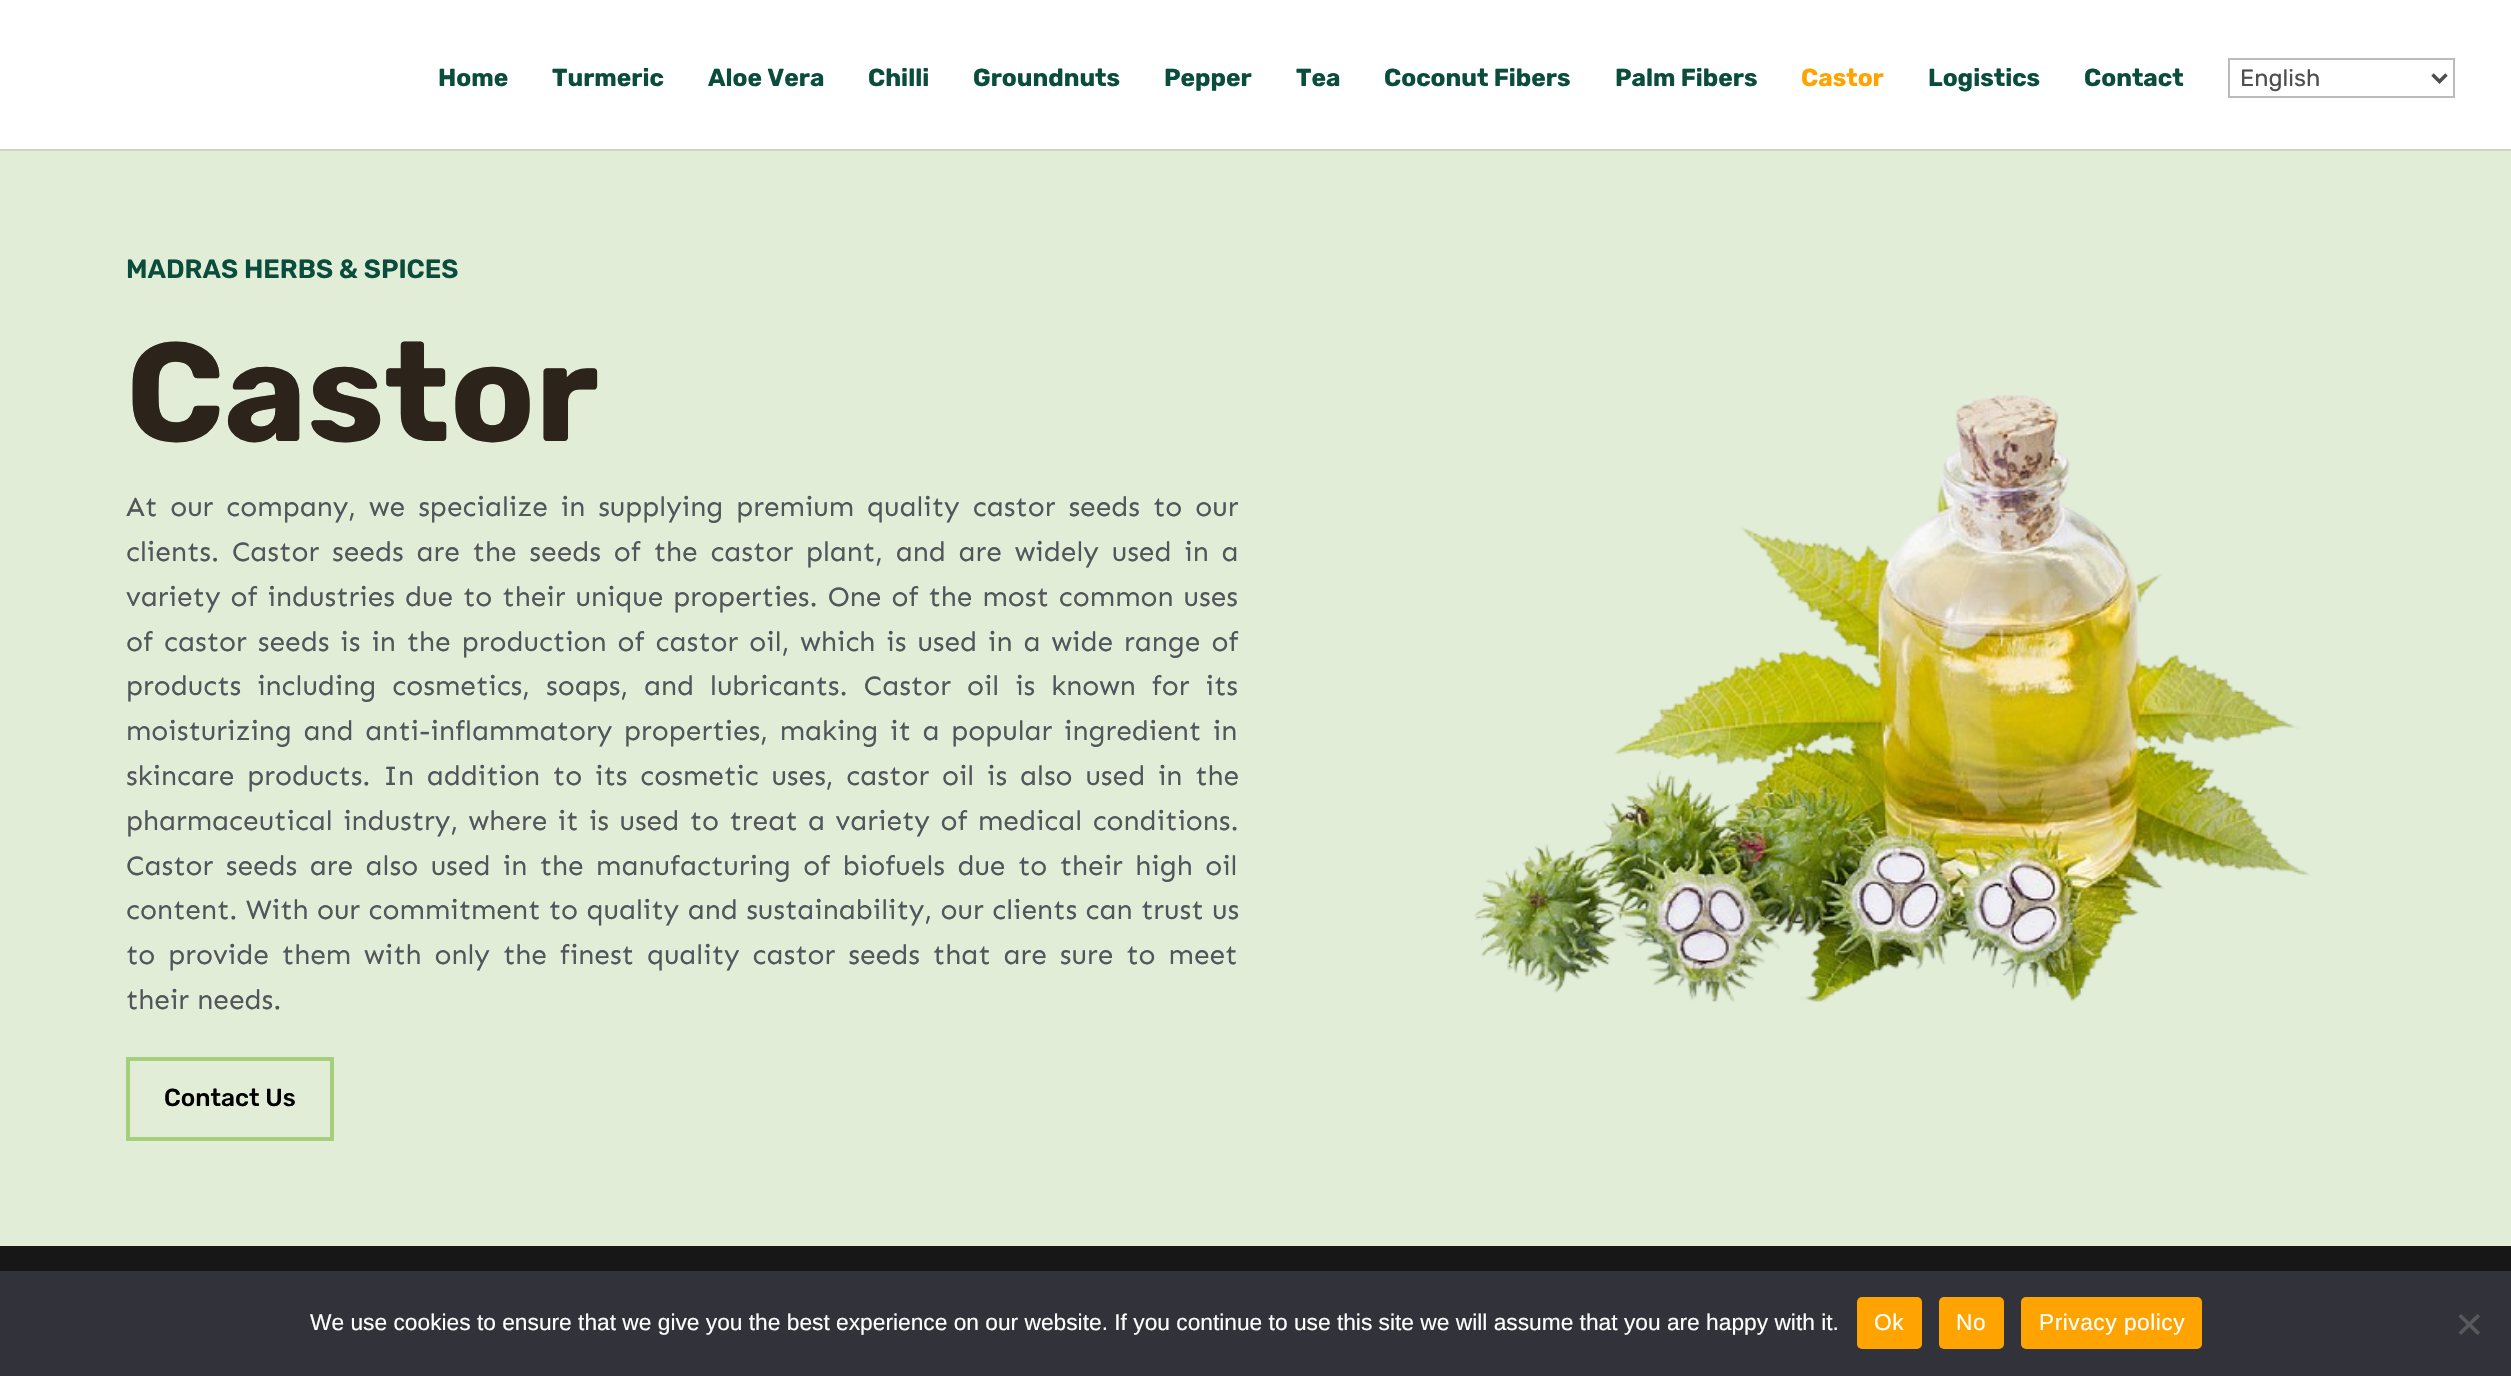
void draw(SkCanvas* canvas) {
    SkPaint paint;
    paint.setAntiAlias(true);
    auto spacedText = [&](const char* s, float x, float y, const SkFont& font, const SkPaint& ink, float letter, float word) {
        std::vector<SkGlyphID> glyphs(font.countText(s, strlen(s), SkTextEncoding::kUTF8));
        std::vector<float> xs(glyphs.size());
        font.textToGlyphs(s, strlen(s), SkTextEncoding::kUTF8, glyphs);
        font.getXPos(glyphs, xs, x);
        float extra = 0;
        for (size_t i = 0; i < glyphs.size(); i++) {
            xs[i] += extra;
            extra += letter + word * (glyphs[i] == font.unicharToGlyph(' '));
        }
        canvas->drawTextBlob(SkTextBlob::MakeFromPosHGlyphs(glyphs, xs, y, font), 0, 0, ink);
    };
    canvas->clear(0xFFFFFFFF);
    paint.setColor(0xFFCBD5C2);
    canvas->drawRect(SkRect::MakeXYWH(0, 149, 2511, 2), paint);
    SkFont font1(fontMgr->matchFamilyStyle("Rubik", SkFontStyle(300, SkFontStyle::kNormal_Width, SkFontStyle::kUpright_Slant)), 24.5f);
    font1.setSubpixel(true);
    paint.setColor(0xFF0A4D3C);
    canvas->drawString("Home", 438, 86, font1, paint);
    canvas->drawString("Turmeric", 552, 86, font1, paint);
    canvas->drawString("Aloe Vera", 708, 86, font1, paint);
    canvas->drawString("Chilli", 868, 86, font1, paint);
    canvas->drawString("Groundnuts", 973, 86, font1, paint);
    canvas->drawString("Pepper", 1164, 86, font1, paint);
    canvas->drawString("Tea", 1296, 86, font1, paint);
    canvas->drawString("Coconut Fibers", 1384, 86, font1, paint);
    canvas->drawString("Palm Fibers", 1615, 86, font1, paint);
    paint.setColor(0xFFFFA300);
    canvas->drawString("Castor", 1801, 86, font1, paint);
    paint.setColor(0xFF0A4D3C);
    canvas->drawString("Logistics", 1928, 86, font1, paint);
    canvas->drawString("Contact", 2084, 86, font1, paint);
    paint.setStyle(SkPaint::kStroke_Style);
    paint.setStrokeWidth(2);
    paint.setColor(0xFFBBBBBB);
    canvas->drawRect(SkRect::MakeXYWH(2229, 59, 225, 38), paint);
    paint.setStrokeWidth(3.5f);
    paint.setColor(0xFF4E4E4E);
    canvas->drawPath(SkPathBuilder().moveTo(2432.5f, 74.5f).lineTo(2439.5f, 81.5f).lineTo(2446.5f, 74.5f).detach(), paint);
    SkFont font2(fontMgr->matchFamilyStyle("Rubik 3", SkFontStyle(300, SkFontStyle::kNormal_Width, SkFontStyle::kUpright_Slant)), 23.5f);
    font2.setSubpixel(true);
    paint.setStyle(SkPaint::kFill_Style);
    canvas->drawString("English", 2240, 86, font2, paint);
    paint.setColor(0xFFE1EDD7);
    canvas->drawRect(SkRect::MakeXYWH(0, 151, 2511, 1095), paint);
    SkFont font3(fontMgr->matchFamilyStyle("Rubik", SkFontStyle(600, SkFontStyle::kNormal_Width, SkFontStyle::kUpright_Slant)), 26.25f);
    font3.setSubpixel(true);
    paint.setColor(0xFF0A4D3C);
    canvas->drawString("MADRAS HERBS & SPICES", 126, 278, font3, paint);
    SkFont font4(fontMgr->matchFamilyStyle("Rubik", SkFontStyle(300, SkFontStyle::kNormal_Width, SkFontStyle::kUpright_Slant)), 140);
    font4.setSubpixel(true);
    paint.setColor(0xFF2C241B);
    canvas->drawString("Castor", 126, 441, font4, paint);
    SkFont font5(fontMgr->matchFamilyStyle("Sen", SkFontStyle::Normal()), 28);
    font5.setSubpixel(true);
    paint.setColor(0xFF52565B);
    spacedText("At our company, we specialize in supplying premium quality castor seeds to our", 126, 516, font5, paint, 0, 4.75f);
    spacedText("clients. Castor seeds are the seeds of the castor plant, and are widely used in a", 126, 561, font5, paint, 0, 4.6f);
    spacedText("variety of industries due to their unique properties. One of the most common uses", 126, 606, font5, paint, 0, 1.8f);
    spacedText("of castor seeds is in the production of castor oil, which is used in a wide range of", 126, 651, font5, paint, 0, 2.75f);
    spacedText("products including cosmetics, soaps, and lubricants. Castor oil is known for its", 126, 695, font5, paint, 0, 7.75f);
    spacedText("moisturizing and anti-inflammatory properties, making it a popular ingredient in", 126, 740, font5, paint, 0, 3.5f);
    spacedText("skincare products. In addition to its cosmetic uses, castor oil is also used in the", 126, 785, font5, paint, 0, 4.6f);
    spacedText("pharmaceutical industry, where it is used to treat a variety of medical conditions.", 126, 830, font5, paint, 0, 2.25f);
    spacedText("Castor seeds are also used in the manufacturing of biofuels due to their high oil", 126, 875, font5, paint, 0, 4.25f);
    spacedText("content. With our commitment to quality and sustainability, our clients can trust us", 126, 919, font5, paint, 0, 0.25f);
    spacedText("to provide them with only the finest quality castor seeds that are sure to meet", 126, 964, font5, paint, 0, 4.75f);
    canvas->drawString("their needs.", 126, 1009, font5, paint);
    paint.setStyle(SkPaint::kStroke_Style);
    paint.setStrokeWidth(4);
    paint.setColor(0xFFA6CF7B);
    canvas->drawRect(SkRect::MakeXYWH(128, 1059, 204, 80), paint);
    SkFont font6(fontMgr->matchFamilyStyle("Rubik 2", SkFontStyle(300, SkFontStyle::kNormal_Width, SkFontStyle::kUpright_Slant)), 24.5f);
    font6.setSubpixel(true);
    paint.setStyle(SkPaint::kFill_Style);
    paint.setColor(0xFF000000);
    canvas->drawString("Contact Us", 164, 1106, font6, paint);
    canvas->drawImageRect(SkImages::DeferredFromEncodedData(SkData::MakeFromFileName("img1.png")), SkRect::MakeXYWH(1474, 394, 836, 608), SkSamplingOptions());
    paint.setColor(0xFF171717);
    canvas->drawRect(SkRect::MakeXYWH(0, 1246, 2511, 25), paint);
    paint.setColor(0xFF32323A);
    canvas->drawRect(SkRect::MakeXYWH(0, 1271, 2511, 105), paint);
    SkFont font7(fontMgr->matchFamilyStyle("Liberation Sans", SkFontStyle::Normal()), 22.75f);
    font7.setSubpixel(true);
    paint.setColor(0xFFFFFFFF);
    canvas->drawString("We use cookies to ensure that we give you the best experience on our website. If you continue to use this site we will assume that you are happy with it.", 310, 1330, font7, paint);
    paint.setColor(0xFFFFA300);
    canvas->drawRoundRect(SkRect::MakeXYWH(1857, 1297, 65, 52), 5, 5, paint);
    paint.setColor(0xFFFFFFFF);
    spacedText("Ok", 1874, 1330, font7, paint, 0.5f, 0);
    paint.setColor(0xFFFFA300);
    canvas->drawRoundRect(SkRect::MakeXYWH(1939, 1297, 65, 52), 5, 5, paint);
    paint.setColor(0xFFFFFFFF);
    spacedText("No", 1956, 1330, font7, paint, 0.5f, 0);
    paint.setColor(0xFFFFA300);
    canvas->drawRoundRect(SkRect::MakeXYWH(2021, 1297, 181, 52), 5, 5, paint);
    paint.setColor(0xFFFFFFFF);
    spacedText("Privacy policy", 2039, 1330, font7, paint, 0.5f, 0);
    paint.setColor(0xFF59595D);
    canvas->drawPath(SkPathBuilder().moveTo(2477.5f, 1314).lineTo(2480, 1316.5f).lineTo(2461, 1335).lineTo(2458.5f, 1332.5f).close().detach(), paint);
    canvas->drawPath(SkPathBuilder().moveTo(2458.5f, 1316.5f).lineTo(2461, 1314).lineTo(2480, 1332.5f).lineTo(2477.5f, 1335).close().detach(), paint);
}
